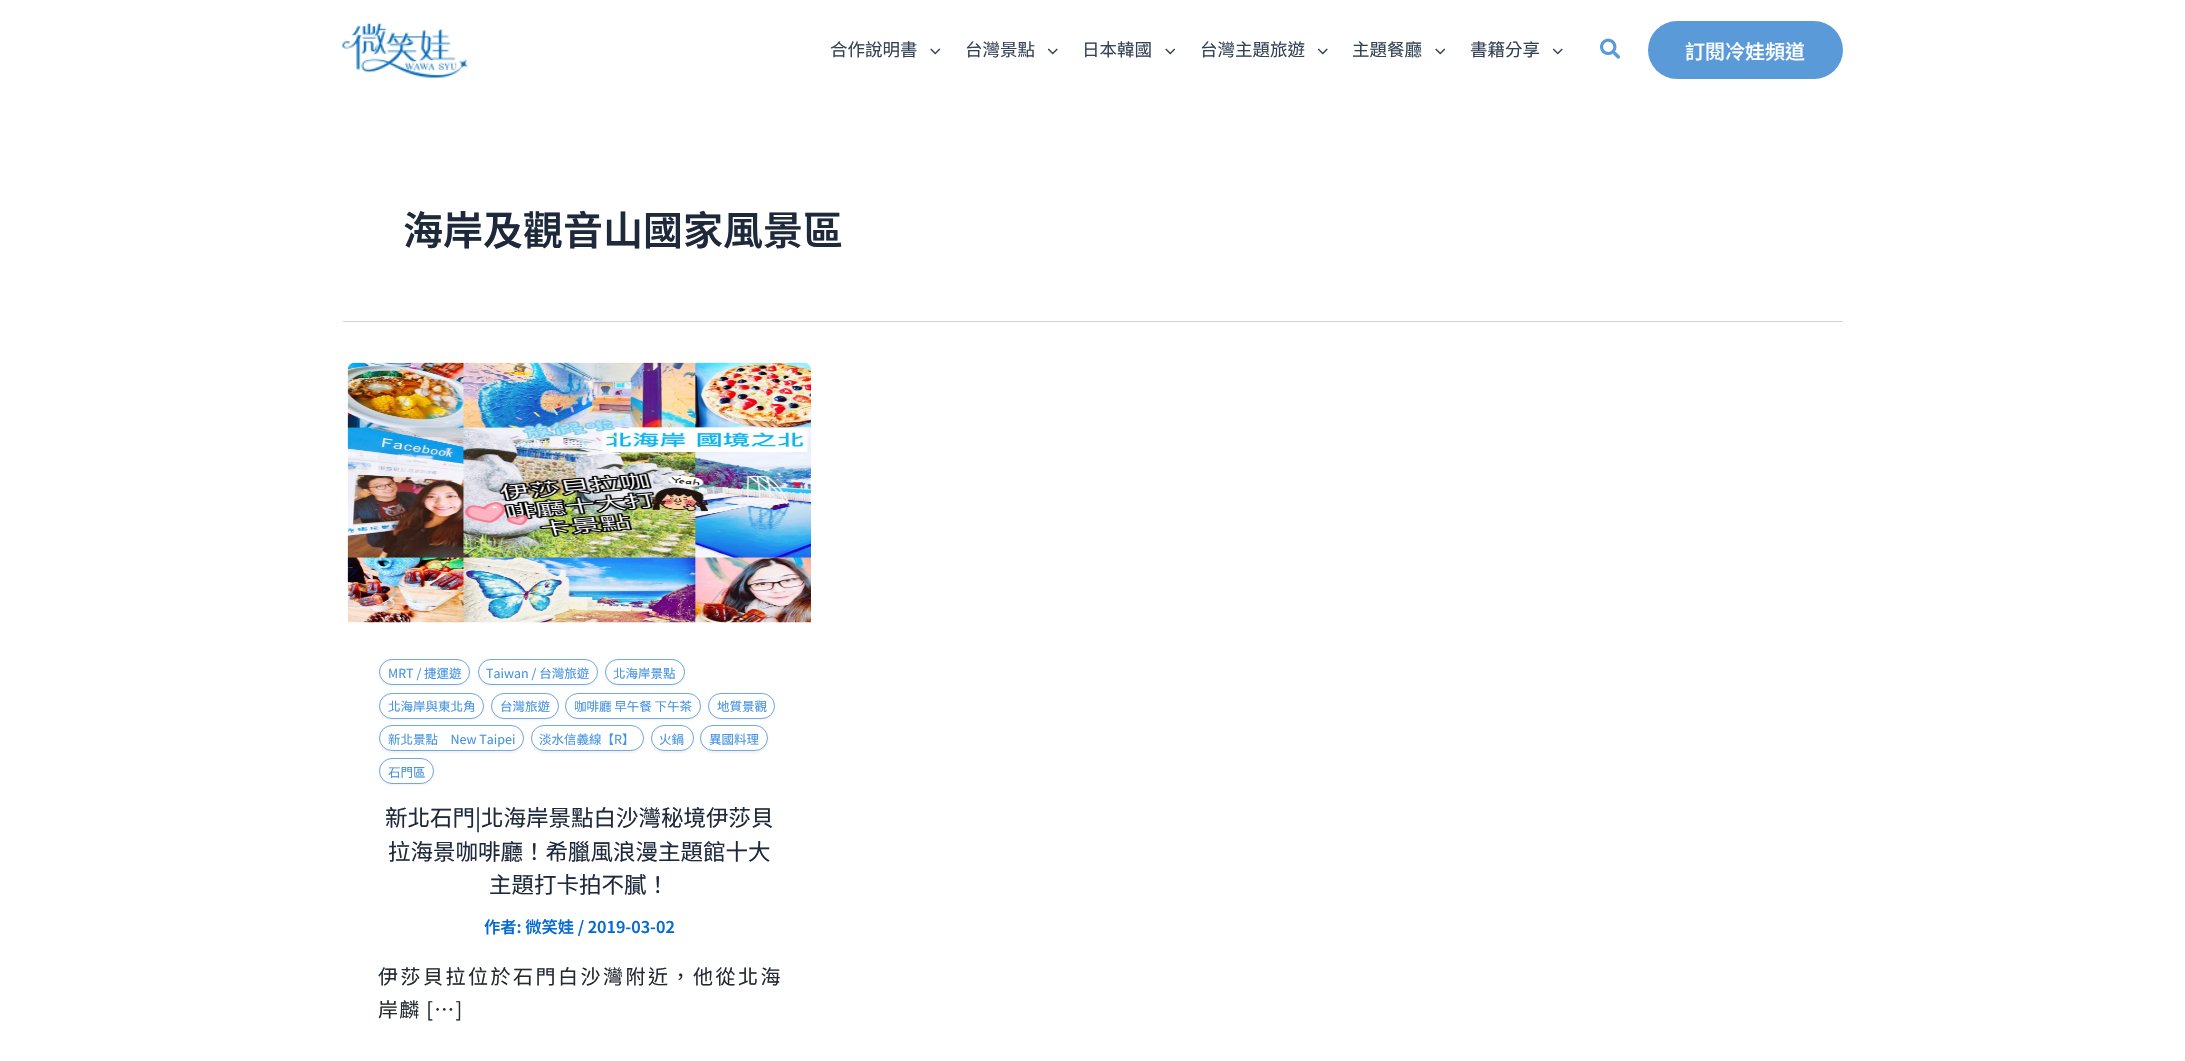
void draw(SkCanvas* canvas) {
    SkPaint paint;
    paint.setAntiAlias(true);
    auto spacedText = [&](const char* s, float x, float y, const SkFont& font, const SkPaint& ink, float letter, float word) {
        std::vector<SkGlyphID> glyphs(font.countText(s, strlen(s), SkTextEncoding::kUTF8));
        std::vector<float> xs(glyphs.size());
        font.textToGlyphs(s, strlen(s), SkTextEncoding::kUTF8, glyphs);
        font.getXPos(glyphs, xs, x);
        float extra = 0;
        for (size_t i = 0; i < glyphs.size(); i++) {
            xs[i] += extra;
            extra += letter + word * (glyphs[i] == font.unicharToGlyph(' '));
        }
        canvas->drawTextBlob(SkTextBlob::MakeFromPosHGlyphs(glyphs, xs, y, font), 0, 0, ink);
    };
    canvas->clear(0xFFFFFFFF);
    canvas->drawImageRect(SkImages::DeferredFromEncodedData(SkData::MakeFromFileName("img1.png")), SkRect::MakeXYWH(342, 23, 126, 55), SkSamplingOptions());
    SkFont font1(fontMgr->matchFamilyStyle("Noto Sans CJK TC", SkFontStyle::Normal()), 17.5f);
    font1.setSubpixel(true);
    paint.setColor(0xFF334155);
    canvas->drawString("合作說明書", 830, 56, font1, paint);
    canvas->drawImageRect(SkImages::DeferredFromEncodedData(SkData::MakeFromFileName("img2.png")), SkRect::MakeXYWH(930, 48, 10, 7), SkSamplingOptions());
    canvas->drawString("台灣景點", 965, 56, font1, paint);
    canvas->drawImageRect(SkImages::DeferredFromEncodedData(SkData::MakeFromFileName("img3.png")), SkRect::MakeXYWH(1048, 48, 10, 7), SkSamplingOptions());
    canvas->drawString("日本韓國", 1082, 56, font1, paint);
    canvas->drawImageRect(SkImages::DeferredFromEncodedData(SkData::MakeFromFileName("img2.png")), SkRect::MakeXYWH(1165, 48, 10, 7), SkSamplingOptions());
    canvas->drawString("台灣主題旅遊", 1200, 56, font1, paint);
    canvas->drawImageRect(SkImages::DeferredFromEncodedData(SkData::MakeFromFileName("img3.png")), SkRect::MakeXYWH(1318, 48, 10, 7), SkSamplingOptions());
    canvas->drawString("主題餐廳", 1352, 56, font1, paint);
    canvas->drawImageRect(SkImages::DeferredFromEncodedData(SkData::MakeFromFileName("img2.png")), SkRect::MakeXYWH(1435, 48, 10, 7), SkSamplingOptions());
    canvas->drawString("書籍分享", 1470, 56, font1, paint);
    canvas->drawImageRect(SkImages::DeferredFromEncodedData(SkData::MakeFromFileName("img3.png")), SkRect::MakeXYWH(1553, 48, 10, 7), SkSamplingOptions());
    canvas->drawImageRect(SkImages::DeferredFromEncodedData(SkData::MakeFromFileName("img4.png")), SkRect::MakeXYWH(1600, 38, 20, 21), SkSamplingOptions());
    paint.setColor(0xFF5A9AD9);
    canvas->drawRoundRect(SkRect::MakeXYWH(1648, 21, 195, 58), 29, 29, paint);
    SkFont font2(fontMgr->matchFamilyStyle("Noto Sans TC", SkFontStyle(500, SkFontStyle::kNormal_Width, SkFontStyle::kUpright_Slant)), 20);
    font2.setSubpixel(true);
    paint.setColor(0xFFFFFFFF);
    canvas->drawString("訂閱冷娃頻道", 1685, 59, font2, paint);
    paint.setColor(0xFFD1D5DB);
    canvas->drawRect(SkRect::MakeXYWH(343, 321, 1500, 1), paint);
    SkFont font3(fontMgr->matchFamilyStyle("Noto Sans TC", SkFontStyle(600, SkFontStyle::kNormal_Width, SkFontStyle::kUpright_Slant)), 40);
    font3.setSubpixel(true);
    paint.setColor(0xFF1E293B);
    canvas->drawString("海岸及觀音山國家風景區", 403, 245, font3, paint);
    canvas->drawImageRect(SkImages::DeferredFromEncodedData(SkData::MakeFromFileName("img5.png")), SkRect::MakeXYWH(347, 362, 464, 261), SkSamplingOptions());
    paint.setColor(0x0D000000);
    paint.setMaskFilter(SkMaskFilter::MakeBlur(kNormal_SkBlurStyle, 1));
    canvas->drawRoundRect(SkRect::MakeXYWH(379, 660, 91, 26), 13, 13, paint);
    paint.setMaskFilter(nullptr);
    paint.setColor(0xFFFFFFFF);
    canvas->drawRoundRect(SkRect::MakeXYWH(379.5f, 659.5f, 90, 25), 12.5f, 12.5f, paint);
    paint.setStyle(SkPaint::kStroke_Style);
    paint.setStrokeWidth(1);
    paint.setColor(0xFF70A8E0);
    canvas->drawRoundRect(SkRect::MakeXYWH(379.5f, 659.5f, 90, 25), 12.5f, 12.5f, paint);
    SkFont font4(fontMgr->matchFamilyStyle("Noto Sans TC", SkFontStyle::Normal()), 12.5f);
    font4.setSubpixel(true);
    paint.setStyle(SkPaint::kFill_Style);
    paint.setColor(0xFF4693E0);
    canvas->drawString("MRT / 捷運遊", 388, 678, font4, paint);
    paint.setColor(0x0D000000);
    paint.setMaskFilter(SkMaskFilter::MakeBlur(kNormal_SkBlurStyle, 1));
    canvas->drawRoundRect(SkRect::MakeXYWH(478, 660, 120, 26), 13, 13, paint);
    paint.setMaskFilter(nullptr);
    paint.setColor(0xFFFFFFFF);
    canvas->drawRoundRect(SkRect::MakeXYWH(478.5f, 659.5f, 119, 25), 12.5f, 12.5f, paint);
    paint.setStyle(SkPaint::kStroke_Style);
    paint.setColor(0xFF70A8E0);
    canvas->drawRoundRect(SkRect::MakeXYWH(478.5f, 659.5f, 119, 25), 12.5f, 12.5f, paint);
    paint.setStyle(SkPaint::kFill_Style);
    paint.setColor(0xFF4693E0);
    canvas->drawString("Taiwan / 台灣旅遊", 486, 678, font4, paint);
    paint.setColor(0x0D000000);
    paint.setMaskFilter(SkMaskFilter::MakeBlur(kNormal_SkBlurStyle, 1));
    canvas->drawRoundRect(SkRect::MakeXYWH(605, 660, 80, 26), 13, 13, paint);
    paint.setMaskFilter(nullptr);
    paint.setColor(0xFFFFFFFF);
    canvas->drawRoundRect(SkRect::MakeXYWH(605.5f, 659.5f, 79, 25), 12.5f, 12.5f, paint);
    paint.setStyle(SkPaint::kStroke_Style);
    paint.setColor(0xFF70A8E0);
    canvas->drawRoundRect(SkRect::MakeXYWH(605.5f, 659.5f, 79, 25), 12.5f, 12.5f, paint);
    paint.setStyle(SkPaint::kFill_Style);
    paint.setColor(0xFF4693E0);
    canvas->drawString("北海岸景點", 613, 678, font4, paint);
    paint.setColor(0x0D000000);
    paint.setMaskFilter(SkMaskFilter::MakeBlur(kNormal_SkBlurStyle, 1));
    canvas->drawRoundRect(SkRect::MakeXYWH(379, 694, 105, 26), 13, 13, paint);
    paint.setMaskFilter(nullptr);
    paint.setColor(0xFFFFFFFF);
    canvas->drawRoundRect(SkRect::MakeXYWH(379.5f, 693.5f, 104, 25), 12.5f, 12.5f, paint);
    paint.setStyle(SkPaint::kStroke_Style);
    paint.setColor(0xFF70A8E0);
    canvas->drawRoundRect(SkRect::MakeXYWH(379.5f, 693.5f, 104, 25), 12.5f, 12.5f, paint);
    paint.setStyle(SkPaint::kFill_Style);
    paint.setColor(0xFF4693E0);
    canvas->drawString("北海岸與東北角", 388, 711, font4, paint);
    paint.setColor(0x0D000000);
    paint.setMaskFilter(SkMaskFilter::MakeBlur(kNormal_SkBlurStyle, 1));
    canvas->drawRoundRect(SkRect::MakeXYWH(491, 694, 68, 26), 13, 13, paint);
    paint.setMaskFilter(nullptr);
    paint.setColor(0xFFFFFFFF);
    canvas->drawRoundRect(SkRect::MakeXYWH(491.5f, 693.5f, 67, 25), 12.5f, 12.5f, paint);
    paint.setStyle(SkPaint::kStroke_Style);
    paint.setColor(0xFF70A8E0);
    canvas->drawRoundRect(SkRect::MakeXYWH(491.5f, 693.5f, 67, 25), 12.5f, 12.5f, paint);
    paint.setStyle(SkPaint::kFill_Style);
    paint.setColor(0xFF4693E0);
    canvas->drawString("台灣旅遊", 500, 711, font4, paint);
    paint.setColor(0x0D000000);
    paint.setMaskFilter(SkMaskFilter::MakeBlur(kNormal_SkBlurStyle, 1));
    canvas->drawRoundRect(SkRect::MakeXYWH(565, 694, 136, 26), 13, 13, paint);
    paint.setMaskFilter(nullptr);
    paint.setColor(0xFFFFFFFF);
    canvas->drawRoundRect(SkRect::MakeXYWH(565.5f, 693.5f, 135, 25), 12.5f, 12.5f, paint);
    paint.setStyle(SkPaint::kStroke_Style);
    paint.setColor(0xFF70A8E0);
    canvas->drawRoundRect(SkRect::MakeXYWH(565.5f, 693.5f, 135, 25), 12.5f, 12.5f, paint);
    paint.setStyle(SkPaint::kFill_Style);
    paint.setColor(0xFF4693E0);
    canvas->drawString("咖啡廳 早午餐 下午茶", 574, 711, font4, paint);
    paint.setColor(0x0D000000);
    paint.setMaskFilter(SkMaskFilter::MakeBlur(kNormal_SkBlurStyle, 1));
    canvas->drawRoundRect(SkRect::MakeXYWH(708, 694, 67, 26), 13, 13, paint);
    paint.setMaskFilter(nullptr);
    paint.setColor(0xFFFFFFFF);
    canvas->drawRoundRect(SkRect::MakeXYWH(708.5f, 693.5f, 66, 25), 12.5f, 12.5f, paint);
    paint.setStyle(SkPaint::kStroke_Style);
    paint.setColor(0xFF70A8E0);
    canvas->drawRoundRect(SkRect::MakeXYWH(708.5f, 693.5f, 66, 25), 12.5f, 12.5f, paint);
    paint.setStyle(SkPaint::kFill_Style);
    paint.setColor(0xFF4693E0);
    canvas->drawString("地質景觀", 717, 711, font4, paint);
    paint.setColor(0x0D000000);
    paint.setMaskFilter(SkMaskFilter::MakeBlur(kNormal_SkBlurStyle, 1));
    canvas->drawRoundRect(SkRect::MakeXYWH(379, 726, 145, 27), 13.5f, 13.5f, paint);
    paint.setMaskFilter(nullptr);
    paint.setColor(0xFFFFFFFF);
    canvas->drawRoundRect(SkRect::MakeXYWH(379.5f, 725.5f, 144, 25), 12.5f, 12.5f, paint);
    paint.setStyle(SkPaint::kStroke_Style);
    paint.setColor(0xFF70A8E0);
    canvas->drawRoundRect(SkRect::MakeXYWH(379.5f, 725.5f, 144, 25), 12.5f, 12.5f, paint);
    paint.setStyle(SkPaint::kFill_Style);
    paint.setColor(0xFF4693E0);
    canvas->drawString("新北景點　New Taipei", 388, 744, font4, paint);
    paint.setColor(0x0D000000);
    paint.setMaskFilter(SkMaskFilter::MakeBlur(kNormal_SkBlurStyle, 1));
    canvas->drawRoundRect(SkRect::MakeXYWH(531, 726, 113, 27), 13.5f, 13.5f, paint);
    paint.setMaskFilter(nullptr);
    paint.setColor(0xFFFFFFFF);
    canvas->drawRoundRect(SkRect::MakeXYWH(531.5f, 725.5f, 112, 25), 12.5f, 12.5f, paint);
    paint.setStyle(SkPaint::kStroke_Style);
    paint.setColor(0xFF70A8E0);
    canvas->drawRoundRect(SkRect::MakeXYWH(531.5f, 725.5f, 112, 25), 12.5f, 12.5f, paint);
    paint.setStyle(SkPaint::kFill_Style);
    paint.setColor(0xFF4693E0);
    canvas->drawString("淡水信義線【R】", 539, 744, font4, paint);
    paint.setColor(0x0D000000);
    paint.setMaskFilter(SkMaskFilter::MakeBlur(kNormal_SkBlurStyle, 1));
    canvas->drawRoundRect(SkRect::MakeXYWH(651, 726, 43, 27), 13.5f, 13.5f, paint);
    paint.setMaskFilter(nullptr);
    paint.setColor(0xFFFFFFFF);
    canvas->drawRoundRect(SkRect::MakeXYWH(651.5f, 725.5f, 42, 25), 12.5f, 12.5f, paint);
    paint.setStyle(SkPaint::kStroke_Style);
    paint.setColor(0xFF70A8E0);
    canvas->drawRoundRect(SkRect::MakeXYWH(651.5f, 725.5f, 42, 25), 12.5f, 12.5f, paint);
    paint.setStyle(SkPaint::kFill_Style);
    paint.setColor(0xFF4693E0);
    canvas->drawString("火鍋", 659, 744, font4, paint);
    paint.setColor(0x0D000000);
    paint.setMaskFilter(SkMaskFilter::MakeBlur(kNormal_SkBlurStyle, 1));
    canvas->drawRoundRect(SkRect::MakeXYWH(700, 726, 68, 27), 13.5f, 13.5f, paint);
    paint.setMaskFilter(nullptr);
    paint.setColor(0xFFFFFFFF);
    canvas->drawRoundRect(SkRect::MakeXYWH(700.5f, 725.5f, 67, 25), 12.5f, 12.5f, paint);
    paint.setStyle(SkPaint::kStroke_Style);
    paint.setColor(0xFF70A8E0);
    canvas->drawRoundRect(SkRect::MakeXYWH(700.5f, 725.5f, 67, 25), 12.5f, 12.5f, paint);
    paint.setStyle(SkPaint::kFill_Style);
    paint.setColor(0xFF4693E0);
    canvas->drawString("異國料理", 709, 744, font4, paint);
    paint.setColor(0x0D000000);
    paint.setMaskFilter(SkMaskFilter::MakeBlur(kNormal_SkBlurStyle, 1));
    canvas->drawRoundRect(SkRect::MakeXYWH(379, 759, 55, 26), 13, 13, paint);
    paint.setMaskFilter(nullptr);
    paint.setColor(0xFFFFFFFF);
    canvas->drawRoundRect(SkRect::MakeXYWH(379.5f, 758.5f, 54, 25), 12.5f, 12.5f, paint);
    paint.setStyle(SkPaint::kStroke_Style);
    paint.setColor(0xFF70A8E0);
    canvas->drawRoundRect(SkRect::MakeXYWH(379.5f, 758.5f, 54, 25), 12.5f, 12.5f, paint);
    paint.setStyle(SkPaint::kFill_Style);
    paint.setColor(0xFF4693E0);
    canvas->drawString("石門區", 388, 777, font4, paint);
    SkFont font5(fontMgr->matchFamilyStyle("Noto Sans CJK TC", SkFontStyle::Normal()), 22.5f);
    font5.setSubpixel(true);
    paint.setColor(0xFF1E293B);
    canvas->drawString("新北石門|北海岸景點白沙灣秘境伊莎貝", 385, 826, font5, paint);
    canvas->drawString("拉海景咖啡廳！希臘風浪漫主題館十大", 388, 860, font5, paint);
    canvas->drawString("主題打卡拍不膩！", 489, 893, font5, paint);
    SkFont font6(fontMgr->matchFamilyStyle("Noto Sans TC", SkFontStyle(600, SkFontStyle::kNormal_Width, SkFontStyle::kUpright_Slant)), 16.25f);
    font6.setSubpixel(true);
    paint.setColor(0xFF046BD2);
    canvas->drawString("作者: 微笑娃 / 2019-03-02", 484, 933, font6, paint);
    SkFont font7(fontMgr->matchFamilyStyle("Noto Sans TC", SkFontStyle::Normal()), 20);
    font7.setSubpixel(true);
    paint.setColor(0xFF232A31);
    spacedText("伊莎貝拉位於石門白沙灣附近，他從北海", 378, 984, font7, paint, 2.5f, 0);
    spacedText("岸麟 […]", 378, 1017, font7, paint, 1.25f, 0);
}
